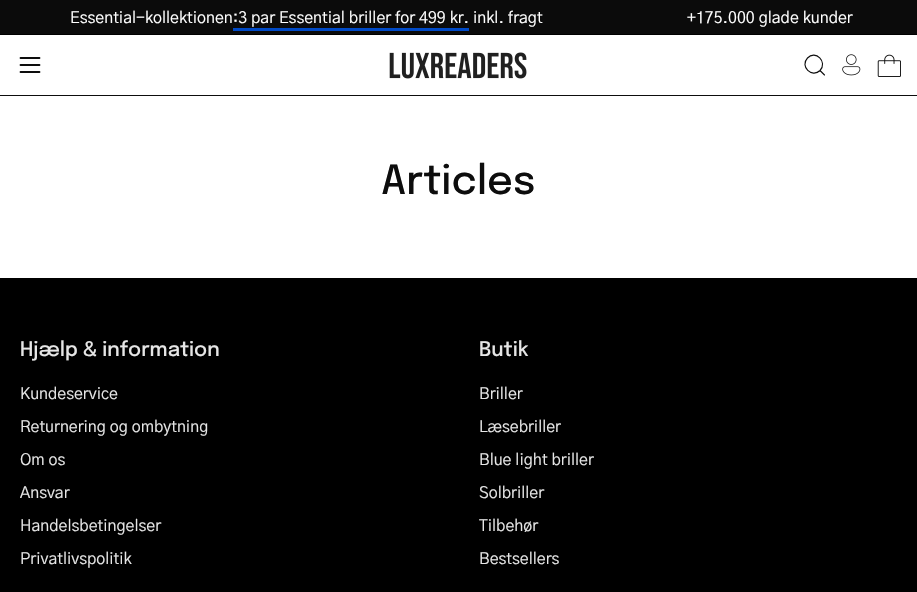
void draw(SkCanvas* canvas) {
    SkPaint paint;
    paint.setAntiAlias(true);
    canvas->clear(0xFFFFFFFF);
    paint.setColor(0xFF0B0B0B);
    canvas->drawRect(SkRect::MakeXYWH(0, 0, 917, 34), paint);
    paint.setColor(0xFF000000);
    canvas->drawRect(SkRect::MakeXYWH(0, 34, 917, 1), paint);
    SkFont font1(fontMgr->matchFamilyStyle("Gothic A1", SkFontStyle::Normal()), 16);
    font1.setSubpixel(true);
    paint.setColor(0xFFFFFFFF);
    canvas->drawString("Essential-kollektionen:3 par Essential briller for 499 kr.", 70, 23, font1, paint);
    canvas->drawString("inkl. fragt", 473, 23, font1, paint);
    paint.setColor(0xFF004AC7);
    canvas->drawRect(SkRect::MakeXYWH(233, 28, 236, 3), paint);
    paint.setColor(0xFFFFFFFF);
    canvas->drawString("+175.000 glade kunder", 687, 23, font1, paint);
    paint.setStyle(SkPaint::kStroke_Style);
    paint.setStrokeWidth(1.8f);
    paint.setStrokeCap(SkPaint::kRound_Cap);
    paint.setStrokeJoin(SkPaint::kRound_Join);
    paint.setColor(0xFF0D0D0D);
    canvas->drawPath(SkPathBuilder().moveTo(20.5f, 65).lineTo(39.5f, 65).moveTo(20.5f, 58).lineTo(39.5f, 58).moveTo(20.5f, 72).lineTo(39.5f, 72).detach(), paint);
    canvas->drawImageRect(SkImages::DeferredFromEncodedData(SkData::MakeFromFileName("img1.png")), SkRect::MakeXYWH(389, 52, 138, 27), SkSamplingOptions());
    paint.setStrokeWidth(1.1f);
    canvas->drawPath(SkPathBuilder().moveTo(824.5f, 75).lineTo(820, 70.5f).moveTo(820, 70.5f).cubicTo(828, 62, 815.5f, 49.5f, 807.5f, 58).cubicTo(799.5f, 66.5f, 812, 78.5f, 820, 70.5f).close().detach(), paint);
    canvas->drawImageRect(SkImages::DeferredFromEncodedData(SkData::MakeFromFileName("img2.png")), SkRect::MakeXYWH(842, 54, 19, 22), SkSamplingOptions());
    canvas->drawImageRect(SkImages::DeferredFromEncodedData(SkData::MakeFromFileName("img3.png")), SkRect::MakeXYWH(877, 54, 24, 23), SkSamplingOptions());
    paint.setStyle(SkPaint::kFill_Style);
    canvas->drawRect(SkRect::MakeXYWH(0, 95, 917, 1), paint);
    SkFont font2(fontMgr->matchFamilyStyle("Epilogue", SkFontStyle(500, SkFontStyle::kNormal_Width, SkFontStyle::kUpright_Slant)), 40);
    font2.setSubpixel(true);
    canvas->drawString("Articles", 381, 194, font2, paint);
    paint.setColor(0xFF000000);
    canvas->drawRect(SkRect::MakeXYWH(0, 278, 917, 314), paint);
    SkFont font3(fontMgr->matchFamilyStyle("Epilogue", SkFontStyle(500, SkFontStyle::kNormal_Width, SkFontStyle::kUpright_Slant)), 20);
    font3.setSubpixel(true);
    paint.setColor(0xFFE6E6E6);
    canvas->drawString("Hjælp & information", 20, 356, font3, paint);
    canvas->drawString("Kundeservice", 20, 399, font1, paint);
    canvas->drawString("Returnering og ombytning", 20, 432, font1, paint);
    canvas->drawString("Om os", 20, 465, font1, paint);
    canvas->drawString("Ansvar", 20, 498, font1, paint);
    canvas->drawString("Handelsbetingelser", 20, 531, font1, paint);
    canvas->drawString("Privatlivspolitik", 20, 564, font1, paint);
    canvas->drawString("Butik", 479, 356, font3, paint);
    canvas->drawString("Briller", 479, 399, font1, paint);
    canvas->drawString("Læsebriller", 479, 432, font1, paint);
    canvas->drawString("Blue light briller", 479, 465, font1, paint);
    canvas->drawString("Solbriller", 479, 498, font1, paint);
    canvas->drawString("Tilbehør", 479, 531, font1, paint);
    canvas->drawString("Bestsellers", 479, 564, font1, paint);
}
